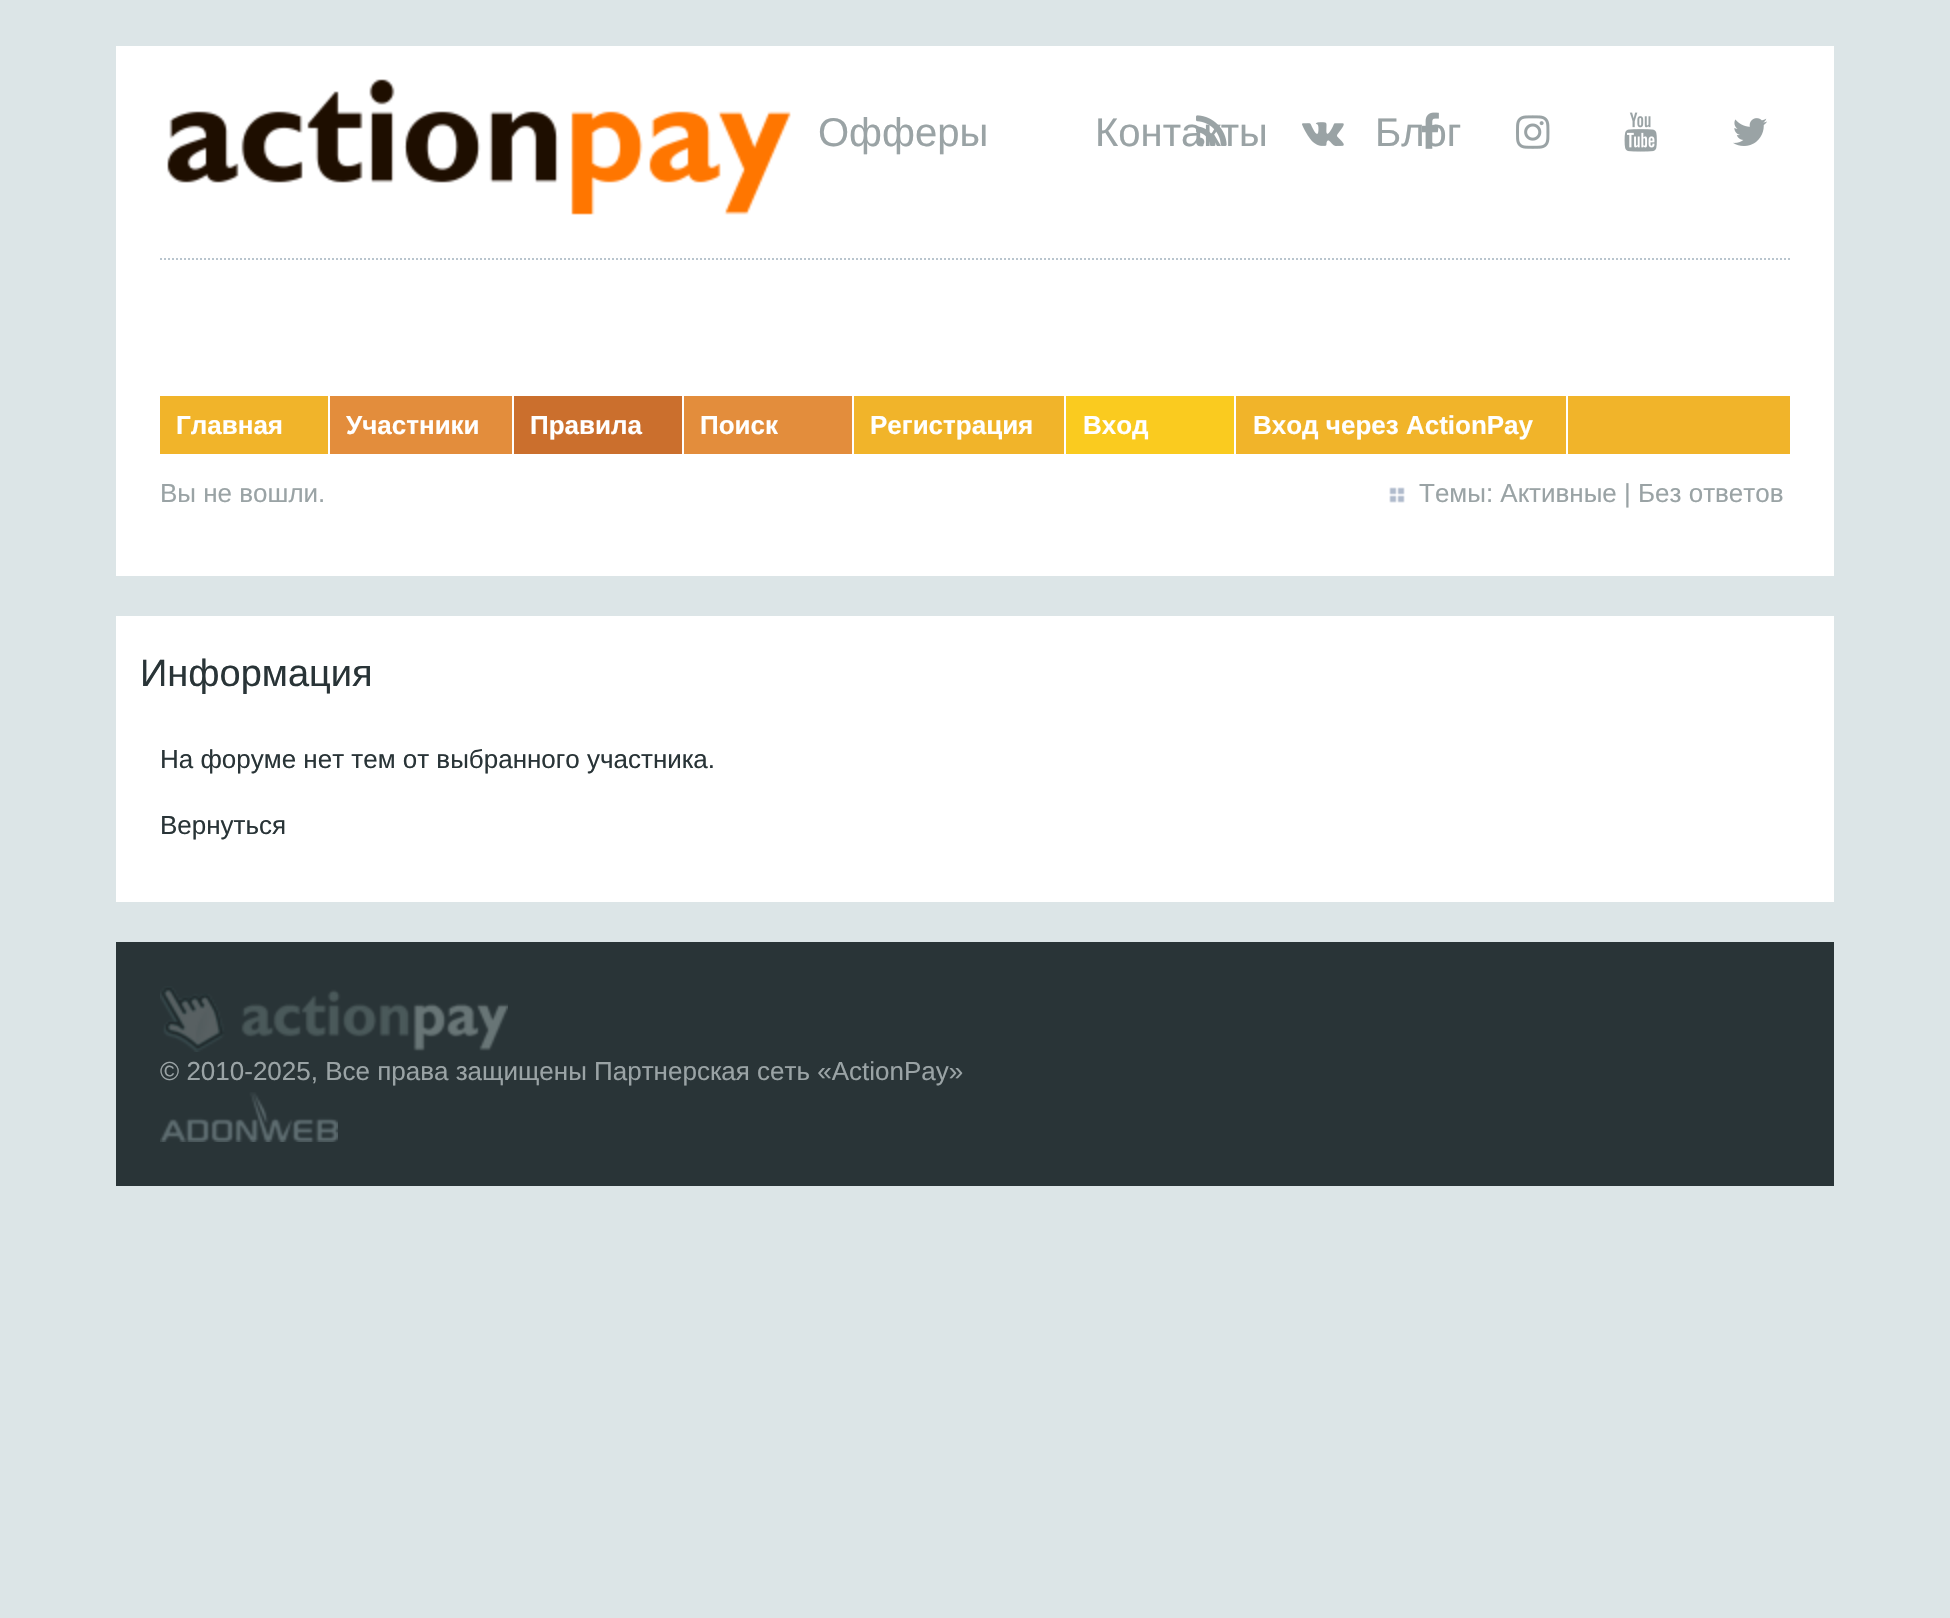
void draw(SkCanvas* canvas) {
    SkPaint paint;
    paint.setAntiAlias(true);
    canvas->clear(0xFFDCE5E7);
    paint.setColor(0xFFFFFFFF);
    canvas->drawRect(SkRect::MakeXYWH(116, 46, 1718, 530), paint);
    canvas->drawImageRect(SkImages::DeferredFromEncodedData(SkData::MakeFromFileName("img1.png")), SkRect::MakeXYWH(167, 79, 624, 136), SkSamplingOptions());
    SkFont font1(fontMgr->matchFamilyStyle("Liberation Sans", SkFontStyle::Normal()), 40);
    font1.setSubpixel(true);
    paint.setColor(0xFF9AA3A5);
    canvas->drawString("Офферы", 818, 146, font1, paint);
    canvas->drawString("Контакты", 1095, 146, font1, paint);
    canvas->drawString("Блог", 1375, 146, font1, paint);
    canvas->drawImageRect(SkImages::DeferredFromEncodedData(SkData::MakeFromFileName("img2.png")), SkRect::MakeXYWH(1196, 115, 31, 31), SkSamplingOptions());
    canvas->drawImageRect(SkImages::DeferredFromEncodedData(SkData::MakeFromFileName("img3.png")), SkRect::MakeXYWH(1302, 122, 42, 24), SkSamplingOptions());
    canvas->drawImageRect(SkImages::DeferredFromEncodedData(SkData::MakeFromFileName("img4.png")), SkRect::MakeXYWH(1422, 112, 17, 37), SkSamplingOptions());
    canvas->drawImageRect(SkImages::DeferredFromEncodedData(SkData::MakeFromFileName("img5.png")), SkRect::MakeXYWH(1516, 115, 34, 34), SkSamplingOptions());
    canvas->drawImageRect(SkImages::DeferredFromEncodedData(SkData::MakeFromFileName("img6.png")), SkRect::MakeXYWH(1624, 112, 33, 40), SkSamplingOptions());
    canvas->drawImageRect(SkImages::DeferredFromEncodedData(SkData::MakeFromFileName("img7.png")), SkRect::MakeXYWH(1733, 118, 34, 28), SkSamplingOptions());
    paint.setStyle(SkPaint::kStroke_Style);
    paint.setStrokeWidth(2);
    paint.setColor(0xFFB9C5CE);
    paint.setPathEffect(SkDashPathEffect::Make({{2, 2}}, 0));
    canvas->drawPath(SkPathBuilder().moveTo(160, 259).lineTo(1790, 259).detach(), paint);
    paint.setPathEffect(nullptr);
    paint.setStyle(SkPaint::kFill_Style);
    paint.setColor(0xFFF1B42A);
    canvas->drawRect(SkRect::MakeXYWH(160, 396, 1630, 58), paint);
    paint.setColor(0xFFFFFFFF);
    canvas->drawRect(SkRect::MakeXYWH(328, 396, 2, 58), paint);
    SkFont font2(fontMgr->matchFamilyStyle("Liberation Sans", SkFontStyle::Bold()), 26);
    font2.setSubpixel(true);
    canvas->drawString("Главная", 176, 434, font2, paint);
    paint.setColor(0xFFE38D3C);
    canvas->drawRect(SkRect::MakeXYWH(330, 396, 182, 58), paint);
    paint.setColor(0xFFFFFFFF);
    canvas->drawRect(SkRect::MakeXYWH(512, 396, 2, 58), paint);
    canvas->drawString("Участники", 346, 434, font2, paint);
    paint.setColor(0xFFCB6F2D);
    canvas->drawRect(SkRect::MakeXYWH(514, 396, 168, 58), paint);
    paint.setColor(0xFFFFFFFF);
    canvas->drawRect(SkRect::MakeXYWH(682, 396, 2, 58), paint);
    canvas->drawString("Правила", 530, 434, font2, paint);
    paint.setColor(0xFFE38D3C);
    canvas->drawRect(SkRect::MakeXYWH(684, 396, 168, 58), paint);
    paint.setColor(0xFFFFFFFF);
    canvas->drawRect(SkRect::MakeXYWH(852, 396, 2, 58), paint);
    canvas->drawString("Поиск", 700, 434, font2, paint);
    canvas->drawRect(SkRect::MakeXYWH(1064, 396, 2, 58), paint);
    canvas->drawString("Регистрация", 870, 434, font2, paint);
    paint.setColor(0xFFFACB1F);
    canvas->drawRect(SkRect::MakeXYWH(1066, 396, 168, 58), paint);
    paint.setColor(0xFFFFFFFF);
    canvas->drawRect(SkRect::MakeXYWH(1234, 396, 2, 58), paint);
    canvas->drawString("Вход", 1083, 434, font2, paint);
    canvas->drawRect(SkRect::MakeXYWH(1566, 396, 2, 58), paint);
    canvas->drawString("Вход через ActionPay", 1253, 434, font2, paint);
    SkFont font3(fontMgr->matchFamilyStyle("Liberation Sans", SkFontStyle::Normal()), 26);
    font3.setSubpixel(true);
    paint.setColor(0xFF9AA3A5);
    canvas->drawString("Вы не вошли.", 160, 502, font3, paint);
    canvas->drawImageRect(SkImages::DeferredFromEncodedData(SkData::MakeFromFileName("img8.png")), SkRect::MakeXYWH(1389, 487, 16, 16), SkSamplingOptions());
    canvas->drawString("Темы: Активные | Без ответов", 1419, 502, font3, paint);
    paint.setColor(0xFFFFFFFF);
    canvas->drawRect(SkRect::MakeXYWH(116, 616, 1718, 286), paint);
    SkFont font4(fontMgr->matchFamilyStyle("Liberation Sans", SkFontStyle::Normal()), 38);
    font4.setSubpixel(true);
    paint.setColor(0xFF293437);
    canvas->drawString("Информация", 140, 686, font4, paint);
    canvas->drawString("На форуме нет тем от выбранного участника.", 160, 768, font3, paint);
    canvas->drawString("Вернуться", 160, 834, font3, paint);
    canvas->drawRect(SkRect::MakeXYWH(116, 942, 1718, 244), paint);
    canvas->drawImageRect(SkImages::DeferredFromEncodedData(SkData::MakeFromFileName("img9.png")), SkRect::MakeXYWH(160, 986, 348, 66), SkSamplingOptions());
    paint.setColor(0xFF9AA3A5);
    canvas->drawString("© 2010-2025, Все права защищены Партнерская сеть «ActionPay»", 160, 1080, font3, paint);
    canvas->drawImageRect(SkImages::DeferredFromEncodedData(SkData::MakeFromFileName("img10.png")), SkRect::MakeXYWH(160, 1092, 178, 50), SkSamplingOptions());
}
